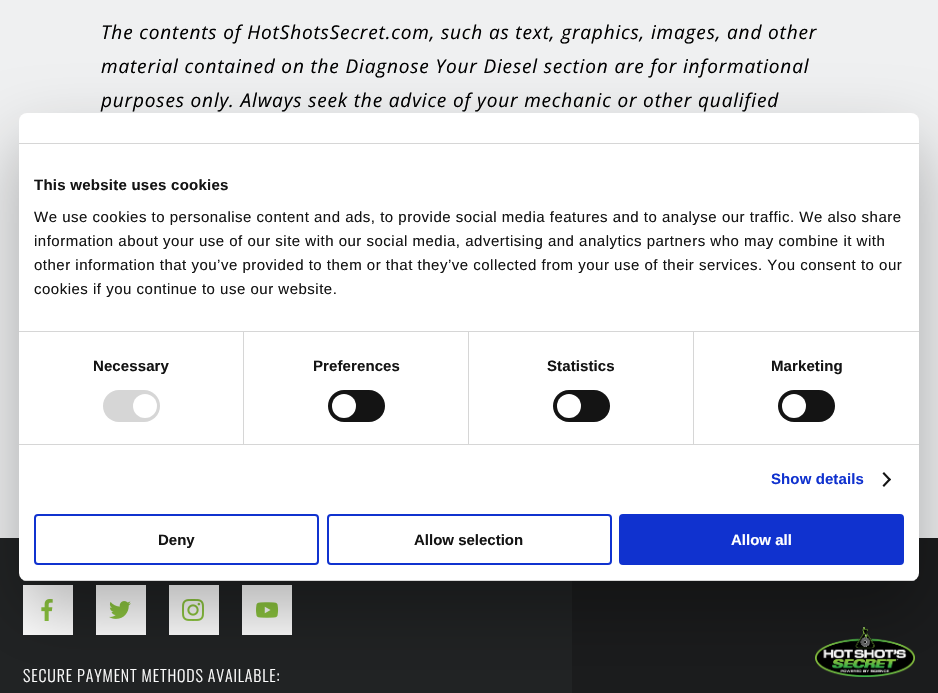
void draw(SkCanvas* canvas) {
    SkPaint paint;
    paint.setAntiAlias(true);
    auto spacedText = [&](const char* s, float x, float y, const SkFont& font, const SkPaint& ink, float letter, float word) {
        std::vector<SkGlyphID> glyphs(font.countText(s, strlen(s), SkTextEncoding::kUTF8));
        std::vector<float> xs(glyphs.size());
        font.textToGlyphs(s, strlen(s), SkTextEncoding::kUTF8, glyphs);
        font.getXPos(glyphs, xs, x);
        float extra = 0;
        for (size_t i = 0; i < glyphs.size(); i++) {
            xs[i] += extra;
            extra += letter + word * (glyphs[i] == font.unicharToGlyph(' '));
        }
        canvas->drawTextBlob(SkTextBlob::MakeFromPosHGlyphs(glyphs, xs, y, font), 0, 0, ink);
    };
    canvas->clear(0xFFEFF0F1);
    SkFont font1(fontMgr->matchFamilyStyle("Open Sans", SkFontStyle::Italic()), 19);
    font1.setSubpixel(true);
    paint.setColor(0xFF000000);
    spacedText("The contents of HotShotsSecret.com, such as text, graphics, images, and other", 101, 39, font1, paint, 0.85f, 0);
    spacedText("material contained on the Diagnose Your Diesel section are for informational", 101, 73, font1, paint, 0.85f, 0);
    spacedText("purposes only. Always seek the advice of your mechanic or other qualified", 101, 107, font1, paint, 0.85f, 0);
    paint.setColor(0xFF212324);
    canvas->drawRect(SkRect::MakeXYWH(0, 538, 572, 155), paint);
    paint.setColor(0xFF1B1C1D);
    canvas->drawRect(SkRect::MakeXYWH(572, 538, 366, 155), paint);
    paint.setColor(0xFFFFFFFF);
    canvas->drawRect(SkRect::MakeXYWH(23, 585, 50, 50), paint);
    canvas->drawImageRect(SkImages::DeferredFromEncodedData(SkData::MakeFromFileName("img1.png")), SkRect::MakeXYWH(41, 599, 12, 22), SkSamplingOptions());
    canvas->drawRect(SkRect::MakeXYWH(96, 585, 50, 50), paint);
    canvas->drawImageRect(SkImages::DeferredFromEncodedData(SkData::MakeFromFileName("img2.png")), SkRect::MakeXYWH(109, 601, 22, 18), SkSamplingOptions());
    canvas->drawRect(SkRect::MakeXYWH(169, 585, 50, 50), paint);
    canvas->drawImageRect(SkImages::DeferredFromEncodedData(SkData::MakeFromFileName("img3.png")), SkRect::MakeXYWH(182, 599, 22, 22), SkSamplingOptions());
    canvas->drawRect(SkRect::MakeXYWH(242, 585, 50, 50), paint);
    canvas->drawImageRect(SkImages::DeferredFromEncodedData(SkData::MakeFromFileName("img4.png")), SkRect::MakeXYWH(256, 602, 23, 16), SkSamplingOptions());
    SkFont font2(fontMgr->matchFamilyStyle("Oswald", SkFontStyle(300, SkFontStyle::kNormal_Width, SkFontStyle::kUpright_Slant)), 16);
    font2.setSubpixel(true);
    spacedText("SECURE PAYMENT METHODS AVAILABLE:", 23, 682, font2, paint, 0.85f, 0);
    canvas->drawImageRect(SkImages::DeferredFromEncodedData(SkData::MakeFromFileName("img5.png")), SkRect::MakeXYWH(815, 627, 100, 50), SkSamplingOptions());
    paint.setColor(0x4D000000);
    paint.setMaskFilter(SkMaskFilter::MakeBlur(kNormal_SkBlurStyle, 34));
    canvas->drawRoundRect(SkRect::MakeXYWH(19, 145, 900, 468), 8, 8, paint);
    paint.setMaskFilter(nullptr);
    paint.setColor(0xFFFFFFFF);
    canvas->drawRoundRect(SkRect::MakeXYWH(19, 113, 900, 468), 8, 8, paint);
    paint.setColor(0xFFD6D6D6);
    canvas->drawRect(SkRect::MakeXYWH(19, 143, 900, 1), paint);
    canvas->drawRect(SkRect::MakeXYWH(19, 331, 900, 1), paint);
    SkFont font3(fontMgr->matchFamilyStyle("Liberation Sans", SkFontStyle::Bold()), 15);
    font3.setSubpixel(true);
    paint.setColor(0xFF141414);
    spacedText("This website uses cookies", 34, 190, font3, paint, 0.25f, 0);
    SkFont font4(fontMgr->matchFamilyStyle("Liberation Sans", SkFontStyle::Normal()), 15);
    font4.setSubpixel(true);
    spacedText("We use cookies to personalise content and ads, to provide social media features and to analyse our traffic. We also share", 34, 222, font4, paint, 0.5f, 0);
    spacedText("information about your use of our site with our social media, advertising and analytics partners who may combine it with", 34, 246, font4, paint, 0.5f, 0);
    spacedText("other information that you’ve provided to them or that they’ve collected from your use of their services. You consent to our", 34, 270, font4, paint, 0.5f, 0);
    spacedText("cookies if you continue to use our website.", 34, 294, font4, paint, 0.5f, 0);
    paint.setColor(0xFFD6D6D6);
    canvas->drawRect(SkRect::MakeXYWH(19, 444, 900, 1), paint);
    canvas->drawRect(SkRect::MakeXYWH(243, 332, 1, 112), paint);
    paint.setColor(0xFF141414);
    spacedText("Necessary", 93, 371, font3, paint, 0.1f, 0);
    paint.setColor(0xFFD6D6D6);
    canvas->drawRoundRect(SkRect::MakeXYWH(103, 390, 57, 32), 16, 16, paint);
    paint.setColor(0xFFFFFFFF);
    canvas->drawCircle(145, 406, 12, paint);
    paint.setColor(0xFFD6D6D6);
    canvas->drawRect(SkRect::MakeXYWH(468, 332, 1, 112), paint);
    paint.setColor(0xFF141414);
    spacedText("Preferences", 313, 371, font3, paint, 0.1f, 0);
    canvas->drawRoundRect(SkRect::MakeXYWH(328, 390, 57, 32), 16, 16, paint);
    paint.setColor(0xFFFFFFFF);
    canvas->drawCircle(344, 406, 12, paint);
    paint.setColor(0xFFD6D6D6);
    canvas->drawRect(SkRect::MakeXYWH(693, 332, 1, 112), paint);
    paint.setColor(0xFF141414);
    spacedText("Statistics", 547, 371, font3, paint, 0.1f, 0);
    canvas->drawRoundRect(SkRect::MakeXYWH(553, 390, 57, 32), 16, 16, paint);
    paint.setColor(0xFFFFFFFF);
    canvas->drawCircle(569, 406, 12, paint);
    paint.setColor(0xFF141414);
    spacedText("Marketing", 771, 371, font3, paint, 0.1f, 0);
    canvas->drawRoundRect(SkRect::MakeXYWH(778, 390, 57, 32), 16, 16, paint);
    paint.setColor(0xFFFFFFFF);
    canvas->drawCircle(794, 406, 12, paint);
    paint.setColor(0xFF1032CF);
    spacedText("Show details", 771, 484, font3, paint, 0.1f, 0);
    paint.setColor(0xFF141414);
    canvas->drawPath(SkPathBuilder().moveTo(884, 472).lineTo(891, 479.5f).lineTo(889.5f, 481).lineTo(882.5f, 473.5f).close().detach(), paint);
    canvas->drawPath(SkPathBuilder().moveTo(889.5f, 478).lineTo(891, 479.5f).lineTo(884, 487).lineTo(882.5f, 485.5f).close().detach(), paint);
    canvas->save();
    canvas->clipPath(SkPathBuilder().moveTo(27, 113).lineTo(911, 113).cubicTo(915.5f, 113, 919, 116.5f, 919, 121).lineTo(919, 573).cubicTo(919, 577.5f, 915.5f, 581, 911, 581).lineTo(27, 581).cubicTo(22.5f, 581, 19, 577.5f, 19, 573).lineTo(19, 121).cubicTo(19, 116.5f, 22.5f, 113, 27, 113).close().detach(), true);
    paint.setColor(0xFFD6D6D6);
    canvas->drawRect(SkRect::MakeXYWH(19, 580, 900, 1), paint);
    canvas->restore();
    paint.setStyle(SkPaint::kStroke_Style);
    paint.setStrokeWidth(2);
    paint.setColor(0xFF1032CF);
    canvas->drawRoundRect(SkRect::MakeXYWH(35, 515, 283, 49), 3, 3, paint);
    paint.setStyle(SkPaint::kFill_Style);
    paint.setColor(0xFF141414);
    canvas->drawString("Deny", 158, 545, font3, paint);
    paint.setStyle(SkPaint::kStroke_Style);
    paint.setColor(0xFF1032CF);
    canvas->drawRoundRect(SkRect::MakeXYWH(328, 515, 283, 49), 3, 3, paint);
    paint.setStyle(SkPaint::kFill_Style);
    paint.setColor(0xFF141414);
    canvas->drawString("Allow selection", 414, 545, font3, paint);
    paint.setColor(0xFF1032CF);
    canvas->drawRoundRect(SkRect::MakeXYWH(620, 515, 283, 49), 3, 3, paint);
    paint.setStyle(SkPaint::kStroke_Style);
    canvas->drawRoundRect(SkRect::MakeXYWH(620, 515, 283, 49), 3, 3, paint);
    paint.setStyle(SkPaint::kFill_Style);
    paint.setColor(0xFFFFFFFF);
    canvas->drawString("Allow all", 731, 545, font3, paint);
}
